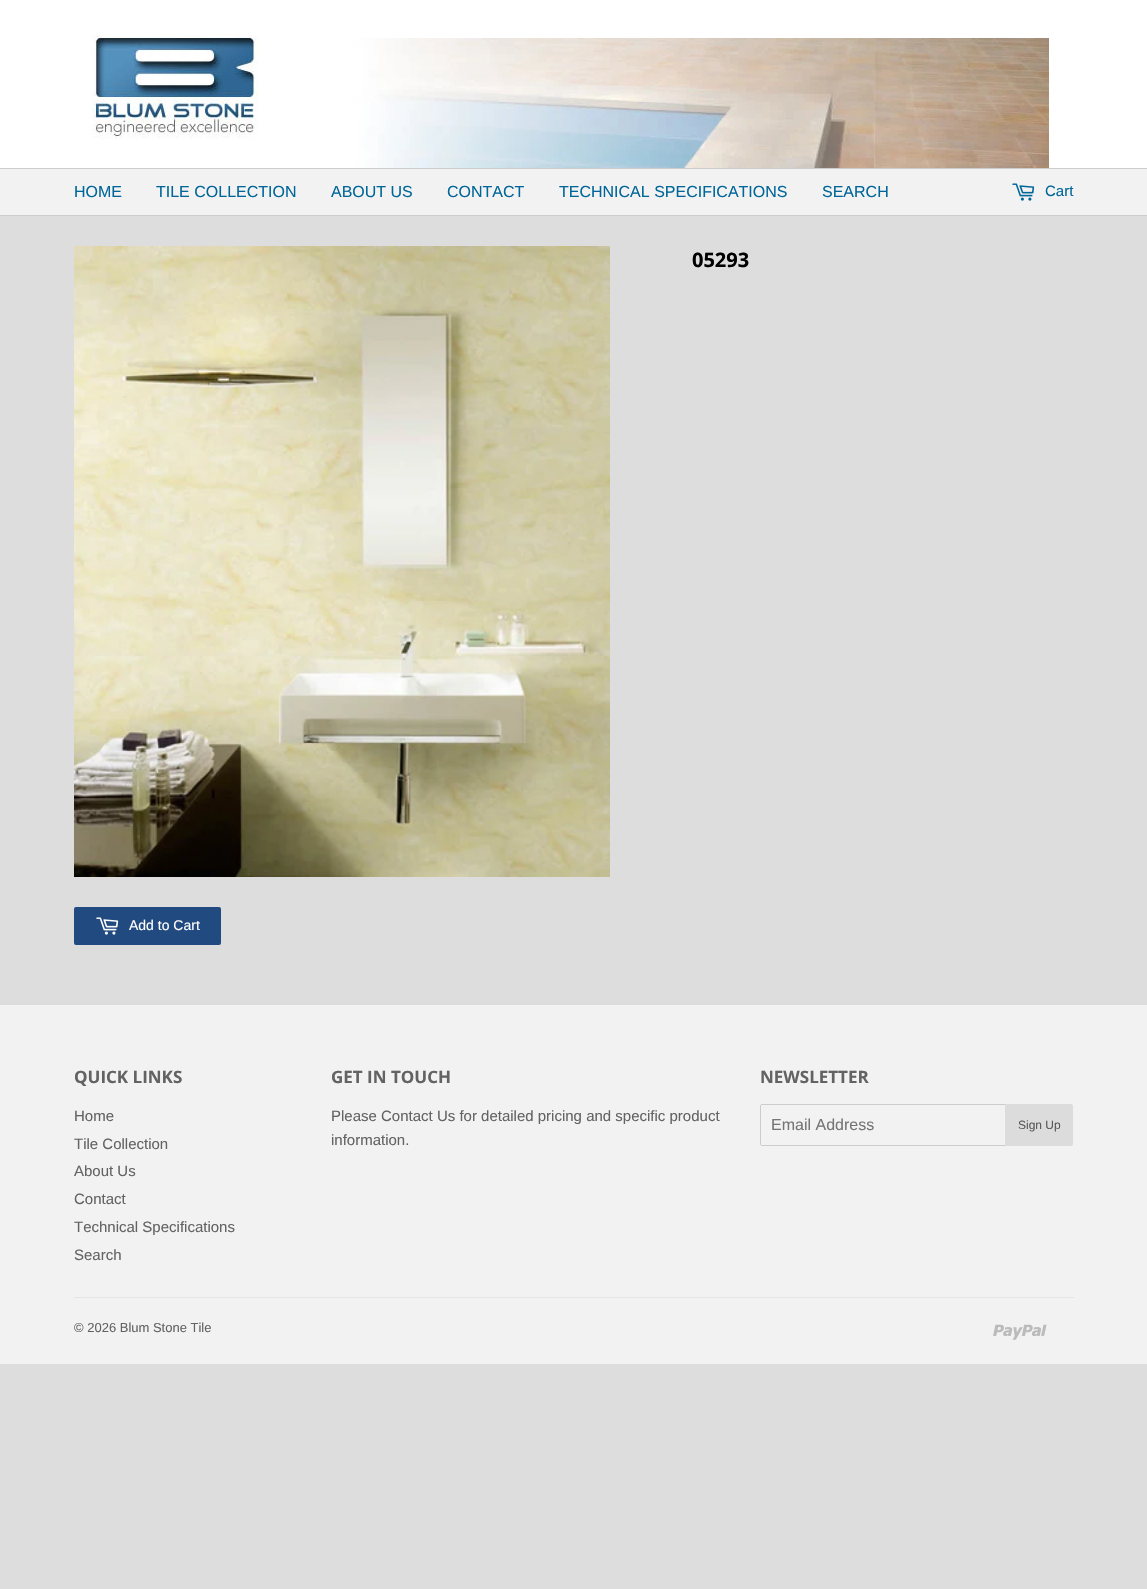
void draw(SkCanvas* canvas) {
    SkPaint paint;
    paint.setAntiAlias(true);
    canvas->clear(0xFFDDDDDD);
    paint.setColor(0xFFFFFFFF);
    canvas->drawRect(SkRect::MakeXYWH(0, 0, 1147, 168), paint);
    canvas->drawImageRect(SkImages::DeferredFromEncodedData(SkData::MakeFromFileName("img1.png")), SkRect::MakeXYWH(90, 35, 168, 104), SkSamplingOptions());
    canvas->drawImageRect(SkImages::DeferredFromEncodedData(SkData::MakeFromFileName("img2.png")), SkRect::MakeXYWH(274, 38, 775, 130), SkSamplingOptions());
    paint.setColor(0xFFF2F2F2);
    canvas->drawRect(SkRect::MakeXYWH(0, 169, 1147, 46), paint);
    paint.setColor(0xFFCCCCCC);
    canvas->drawRect(SkRect::MakeXYWH(0, 168, 1147, 1), paint);
    canvas->drawRect(SkRect::MakeXYWH(0, 215, 1147, 1), paint);
    SkFont font1(fontMgr->matchFamilyStyle("Liberation Sans", SkFontStyle::Normal()), 16);
    font1.setSubpixel(true);
    paint.setColor(0xFF006699);
    canvas->drawString("HOME", 74, 197, font1, paint);
    canvas->drawString("TILE COLLECTION", 156, 197, font1, paint);
    canvas->drawString("ABOUT US", 331, 197, font1, paint);
    canvas->drawString("CONTACT", 447, 197, font1, paint);
    canvas->drawString("TECHNICAL SPECIFICATIONS", 559, 197, font1, paint);
    canvas->drawString("SEARCH", 822, 197, font1, paint);
    canvas->drawImageRect(SkImages::DeferredFromEncodedData(SkData::MakeFromFileName("img3.png")), SkRect::MakeXYWH(1012, 183, 23, 18), SkSamplingOptions());
    SkFont font2(fontMgr->matchFamilyStyle("Liberation Sans", SkFontStyle::Normal()), 15);
    font2.setSubpixel(true);
    canvas->drawString("Cart", 1045, 196, font2, paint);
    SkFont font3(fontMgr->matchFamilyStyle("Open Sans", SkFontStyle::Bold()), 20);
    font3.setSubpixel(true);
    paint.setColor(0xFF000000);
    canvas->drawString("05293", 692, 267, font3, paint);
    canvas->drawImageRect(SkImages::DeferredFromEncodedData(SkData::MakeFromFileName("img4.png")), SkRect::MakeXYWH(74, 246, 536, 631), SkSamplingOptions());
    paint.setColor(0xFF204A80);
    canvas->drawRoundRect(SkRect::MakeXYWH(74, 907, 147, 38), 2, 2, paint);
    canvas->drawImageRect(SkImages::DeferredFromEncodedData(SkData::MakeFromFileName("img5.png")), SkRect::MakeXYWH(96, 917, 23, 18), SkSamplingOptions());
    SkFont font4(fontMgr->matchFamilyStyle("Liberation Sans", SkFontStyle::Normal()), 14);
    font4.setSubpixel(true);
    paint.setColor(0xFFFFFFFF);
    canvas->drawString("Add to Cart", 129, 930, font4, paint);
    paint.setColor(0xFFF2F2F2);
    canvas->drawRect(SkRect::MakeXYWH(0, 1005, 1147, 359), paint);
    SkFont font5(fontMgr->matchFamilyStyle("Open Sans", SkFontStyle::Bold()), 17);
    font5.setSubpixel(true);
    paint.setColor(0xFF636363);
    canvas->drawString("QUICK LINKS", 74, 1083, font5, paint);
    canvas->drawString("Home", 74, 1121, font2, paint);
    canvas->drawString("Tile Collection", 74, 1149, font2, paint);
    canvas->drawString("About Us", 74, 1176, font2, paint);
    canvas->drawString("Contact", 74, 1204, font2, paint);
    canvas->drawString("Technical Specifications", 74, 1232, font2, paint);
    canvas->drawString("Search", 74, 1260, font2, paint);
    canvas->drawString("GET IN TOUCH", 331, 1083, font5, paint);
    canvas->drawString("Please Contact Us for detailed pricing and specific product", 331, 1121, font2, paint);
    canvas->drawString("information.", 331, 1145, font2, paint);
    canvas->drawString("NEWSLETTER", 760, 1083, font5, paint);
    paint.setColor(0xFFCCCCCC);
    canvas->drawRect(SkRect::MakeXYWH(761, 1104, 244, 1), paint);
    canvas->drawRect(SkRect::MakeXYWH(761, 1145, 244, 1), paint);
    canvas->drawRect(SkRect::MakeXYWH(760, 1105, 1, 40), paint);
    paint.setColor(0xFF757575);
    canvas->drawString("Email Address", 771, 1130, font1, paint);
    paint.setColor(0xFFDCDCDC);
    canvas->drawPath(SkPathBuilder().moveTo(1005, 1104).lineTo(1071, 1104).cubicTo(1072, 1104, 1073, 1105, 1073, 1106).lineTo(1073, 1144).cubicTo(1073, 1145, 1072, 1146, 1071, 1146).lineTo(1005, 1146).close().detach(), paint);
    SkFont font6(fontMgr->matchFamilyStyle("Liberation Sans", SkFontStyle::Normal()), 12);
    font6.setSubpixel(true);
    paint.setColor(0xFF585858);
    canvas->drawString("Sign Up", 1018, 1129, font6, paint);
    paint.setColor(0xFFE5E5E5);
    canvas->drawRect(SkRect::MakeXYWH(74, 1297, 1000, 1), paint);
    SkFont font7(fontMgr->matchFamilyStyle("Liberation Sans", SkFontStyle::Normal()), 13);
    font7.setSubpixel(true);
    paint.setColor(0xFF636363);
    canvas->drawString("© 2026 Blum Stone Tile", 74, 1332, font7, paint);
    canvas->drawImageRect(SkImages::DeferredFromEncodedData(SkData::MakeFromFileName("img6.png")), SkRect::MakeXYWH(993, 1324, 54, 16), SkSamplingOptions());
}
